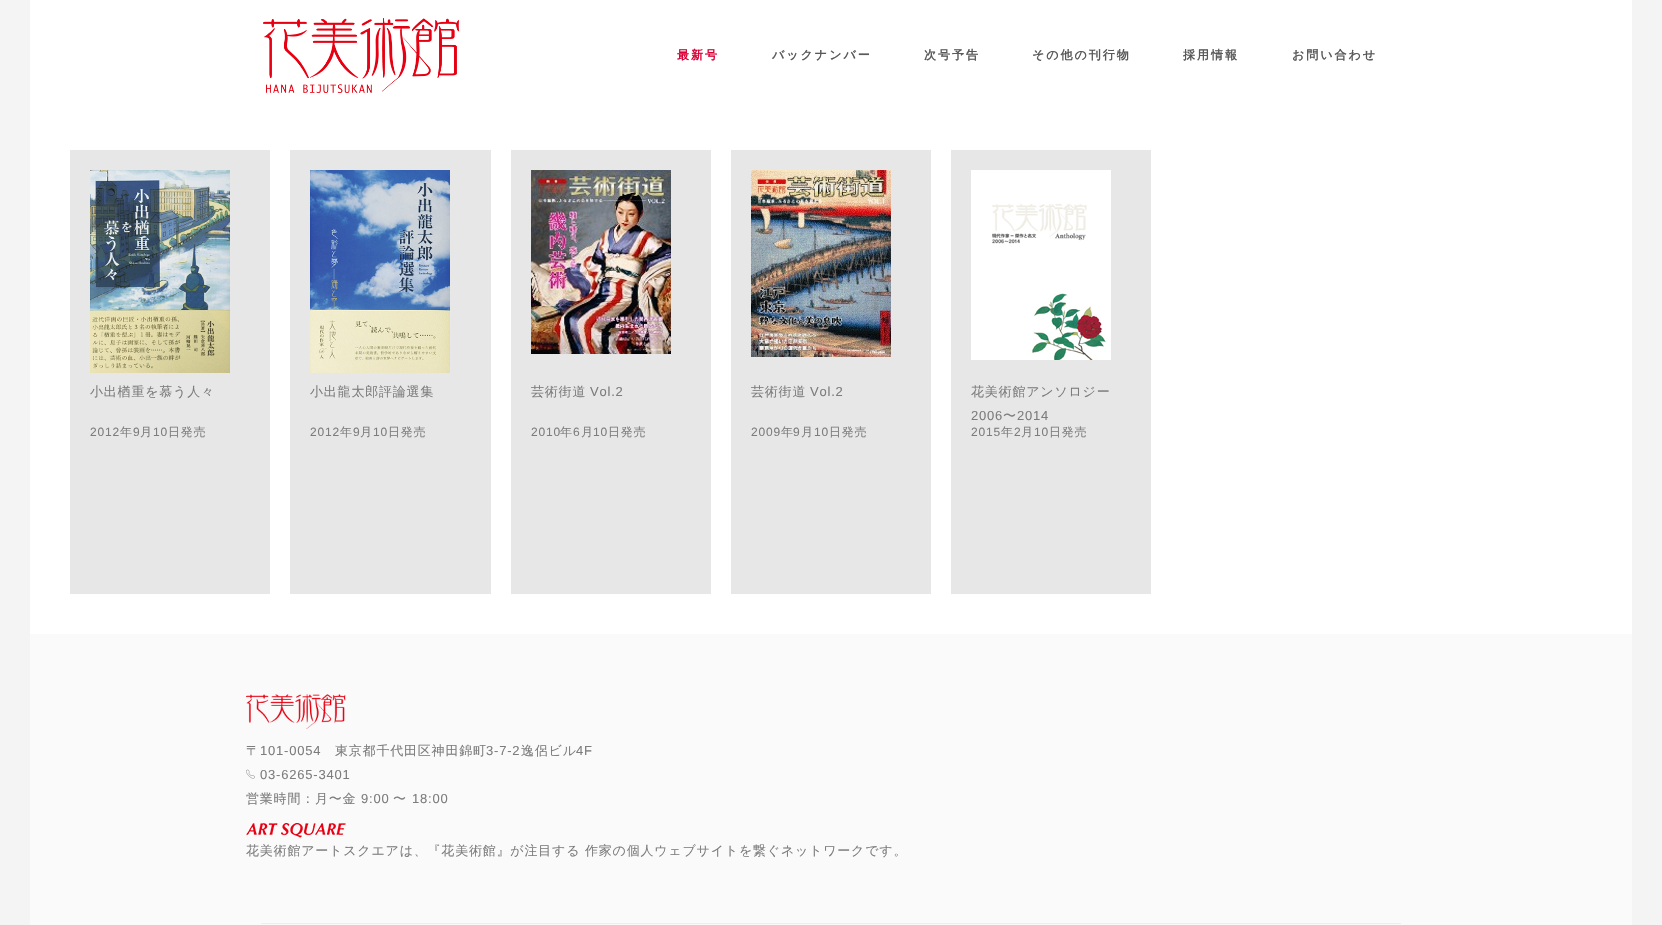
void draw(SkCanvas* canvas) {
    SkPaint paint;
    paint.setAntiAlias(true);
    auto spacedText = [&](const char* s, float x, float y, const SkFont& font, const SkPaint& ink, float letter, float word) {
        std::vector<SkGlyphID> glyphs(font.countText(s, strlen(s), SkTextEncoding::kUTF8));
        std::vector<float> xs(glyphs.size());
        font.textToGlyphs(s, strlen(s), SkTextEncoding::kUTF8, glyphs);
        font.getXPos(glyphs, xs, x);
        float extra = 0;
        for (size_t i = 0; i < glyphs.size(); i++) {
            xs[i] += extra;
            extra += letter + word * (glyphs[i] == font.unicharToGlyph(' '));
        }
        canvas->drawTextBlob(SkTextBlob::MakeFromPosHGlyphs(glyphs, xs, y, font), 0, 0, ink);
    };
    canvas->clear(0xFFF4F4F4);
    paint.setColor(0xFFFFFFFF);
    canvas->drawRect(SkRect::MakeXYWH(30, 0, 1602, 634), paint);
    canvas->drawImageRect(SkImages::DeferredFromEncodedData(SkData::MakeFromFileName("img1.png")), SkRect::MakeXYWH(263, 18, 196, 75), SkSamplingOptions());
    SkFont font1(fontMgr->matchFamilyStyle("WenQuanYi Zen Hei", SkFontStyle::Bold()), 12);
    font1.setSubpixel(true);
    paint.setColor(0xFFD70035);
    spacedText("最新号", 677, 59, font1, paint, 2, 0);
    paint.setColor(0xFF595959);
    spacedText("バックナンバー", 772, 59, font1, paint, 2, 0);
    spacedText("次号予告", 924, 59, font1, paint, 2, 0);
    spacedText("その他の刊行物", 1032, 59, font1, paint, 2, 0);
    spacedText("採用情報", 1183, 59, font1, paint, 2, 0);
    spacedText("お問い合わせ", 1292, 59, font1, paint, 2, 0);
    paint.setColor(0xFFE7E7E7);
    canvas->drawRect(SkRect::MakeXYWH(70, 150, 200, 444), paint);
    canvas->drawImageRect(SkImages::DeferredFromEncodedData(SkData::MakeFromFileName("img2.png")), SkRect::MakeXYWH(90, 170, 140, 203), SkSamplingOptions());
    SkFont font2(fontMgr->matchFamilyStyle("WenQuanYi Zen Hei", SkFontStyle(500, SkFontStyle::kNormal_Width, SkFontStyle::kUpright_Slant)), 13);
    font2.setSubpixel(true);
    paint.setColor(0xFF7D7D7D);
    spacedText("小出楢重を慕う人々", 90, 396, font2, paint, 0.8f, 0);
    SkFont font3(fontMgr->matchFamilyStyle("Liberation Sans", SkFontStyle::Normal()), 12);
    font3.setSubpixel(true);
    spacedText("2012", 90, 436, font3, paint, 0.8f, 0);
    SkFont font4(fontMgr->matchFamilyStyle("WenQuanYi Zen Hei", SkFontStyle(500, SkFontStyle::kNormal_Width, SkFontStyle::kUpright_Slant)), 12);
    font4.setSubpixel(true);
    spacedText("年", 120, 436, font4, paint, 0.8f, 0);
    spacedText("9", 133, 436, font3, paint, 0.8f, 0);
    spacedText("月", 140, 436, font4, paint, 0.8f, 0);
    spacedText("10", 153, 436, font3, paint, 0.8f, 0);
    spacedText("日発売", 168, 436, font4, paint, 0.8f, 0);
    paint.setColor(0xFFE7E7E7);
    canvas->drawRect(SkRect::MakeXYWH(290, 150, 201, 444), paint);
    canvas->drawImageRect(SkImages::DeferredFromEncodedData(SkData::MakeFromFileName("img3.png")), SkRect::MakeXYWH(310, 170, 140, 203), SkSamplingOptions());
    paint.setColor(0xFF7D7D7D);
    spacedText("小出龍太郎評論選集", 310, 396, font2, paint, 0.8f, 0);
    spacedText("2012", 310, 436, font3, paint, 0.8f, 0);
    spacedText("年", 340, 436, font4, paint, 0.8f, 0);
    spacedText("9", 353, 436, font3, paint, 0.8f, 0);
    spacedText("月", 360, 436, font4, paint, 0.8f, 0);
    spacedText("10", 373, 436, font3, paint, 0.8f, 0);
    spacedText("日発売", 388, 436, font4, paint, 0.8f, 0);
    paint.setColor(0xFFE7E7E7);
    canvas->drawRect(SkRect::MakeXYWH(511, 150, 200, 444), paint);
    canvas->drawImageRect(SkImages::DeferredFromEncodedData(SkData::MakeFromFileName("img4.png")), SkRect::MakeXYWH(531, 170, 140, 184), SkSamplingOptions());
    paint.setColor(0xFF7D7D7D);
    spacedText("芸術街道", 531, 396, font2, paint, 0.8f, 0);
    SkFont font5(fontMgr->matchFamilyStyle("Liberation Sans", SkFontStyle::Normal()), 13);
    font5.setSubpixel(true);
    spacedText("Vol.2", 590, 396, font5, paint, 0.8f, 0);
    spacedText("2010", 531, 436, font3, paint, 0.8f, 0);
    spacedText("年", 560, 436, font4, paint, 0.8f, 0);
    spacedText("6", 573, 436, font3, paint, 0.8f, 0);
    spacedText("月", 581, 436, font4, paint, 0.8f, 0);
    spacedText("10", 593, 436, font3, paint, 0.8f, 0);
    spacedText("日発売", 608, 436, font4, paint, 0.8f, 0);
    paint.setColor(0xFFE7E7E7);
    canvas->drawRect(SkRect::MakeXYWH(731, 150, 200, 444), paint);
    canvas->drawImageRect(SkImages::DeferredFromEncodedData(SkData::MakeFromFileName("img5.png")), SkRect::MakeXYWH(751, 170, 140, 187), SkSamplingOptions());
    paint.setColor(0xFF7D7D7D);
    spacedText("芸術街道", 751, 396, font2, paint, 0.8f, 0);
    spacedText("Vol.2", 810, 396, font5, paint, 0.8f, 0);
    spacedText("2009", 751, 436, font3, paint, 0.8f, 0);
    spacedText("年", 781, 436, font4, paint, 0.8f, 0);
    spacedText("9", 793, 436, font3, paint, 0.8f, 0);
    spacedText("月", 801, 436, font4, paint, 0.8f, 0);
    spacedText("10", 814, 436, font3, paint, 0.8f, 0);
    spacedText("日発売", 829, 436, font4, paint, 0.8f, 0);
    paint.setColor(0xFFE7E7E7);
    canvas->drawRect(SkRect::MakeXYWH(951, 150, 200, 444), paint);
    canvas->drawImageRect(SkImages::DeferredFromEncodedData(SkData::MakeFromFileName("img6.png")), SkRect::MakeXYWH(971, 170, 140, 190), SkSamplingOptions());
    paint.setColor(0xFF7D7D7D);
    spacedText("花美術館アンソロジー", 971, 396, font2, paint, 0.8f, 0);
    spacedText("2006", 971, 420, font5, paint, 0.8f, 0);
    spacedText("〜", 1003, 420, font2, paint, 0.8f, 0);
    spacedText("2014", 1017, 420, font5, paint, 0.8f, 0);
    spacedText("2015", 971, 436, font3, paint, 0.8f, 0);
    spacedText("年", 1001, 436, font4, paint, 0.8f, 0);
    spacedText("2", 1014, 436, font3, paint, 0.8f, 0);
    spacedText("月", 1021, 436, font4, paint, 0.8f, 0);
    spacedText("10", 1034, 436, font3, paint, 0.8f, 0);
    spacedText("日発売", 1049, 436, font4, paint, 0.8f, 0);
    paint.setColor(0xFFFAFAFA);
    canvas->drawRect(SkRect::MakeXYWH(30, 634, 1602, 291), paint);
    canvas->drawImageRect(SkImages::DeferredFromEncodedData(SkData::MakeFromFileName("img7.png")), SkRect::MakeXYWH(246, 694, 100, 35), SkSamplingOptions());
    paint.setColor(0xFF7D7D7D);
    spacedText("〒", 246, 755, font2, paint, 0.8f, 0);
    spacedText("101-0054", 260, 755, font5, paint, 0.8f, 0);
    spacedText("東京都千代田区神田錦町", 335, 755, font2, paint, 0.8f, 0);
    spacedText("3-7-2", 486, 755, font5, paint, 0.8f, 0);
    spacedText("逸侶ビル", 521, 755, font2, paint, 0.8f, 0);
    spacedText("4F", 576, 755, font5, paint, 0.8f, 0);
    canvas->drawImageRect(SkImages::DeferredFromEncodedData(SkData::MakeFromFileName("img8.png")), SkRect::MakeXYWH(246, 769, 9, 10), SkSamplingOptions());
    spacedText("03-6265-3401", 260, 779, font5, paint, 0.8f, 0);
    spacedText("営業時間：月〜金", 246, 803, font2, paint, 0.8f, 0);
    spacedText("9:00", 361, 803, font5, paint, 0.8f, 0);
    spacedText("〜", 393, 803, font2, paint, 0.8f, 0);
    spacedText("18:00", 412, 803, font5, paint, 0.8f, 0);
    canvas->drawImageRect(SkImages::DeferredFromEncodedData(SkData::MakeFromFileName("img9.png")), SkRect::MakeXYWH(246, 823, 100, 16), SkSamplingOptions());
    spacedText("花美術館アートスクエアは、『花美術館』が注目する 作家の個人ウェブサイトを繋ぐネットワークです。", 246, 855, font2, paint, 0.8f, 0);
    paint.setColor(0xFFEEEEEE);
    canvas->drawRect(SkRect::MakeXYWH(261, 923, 1140, 1), paint);
}
